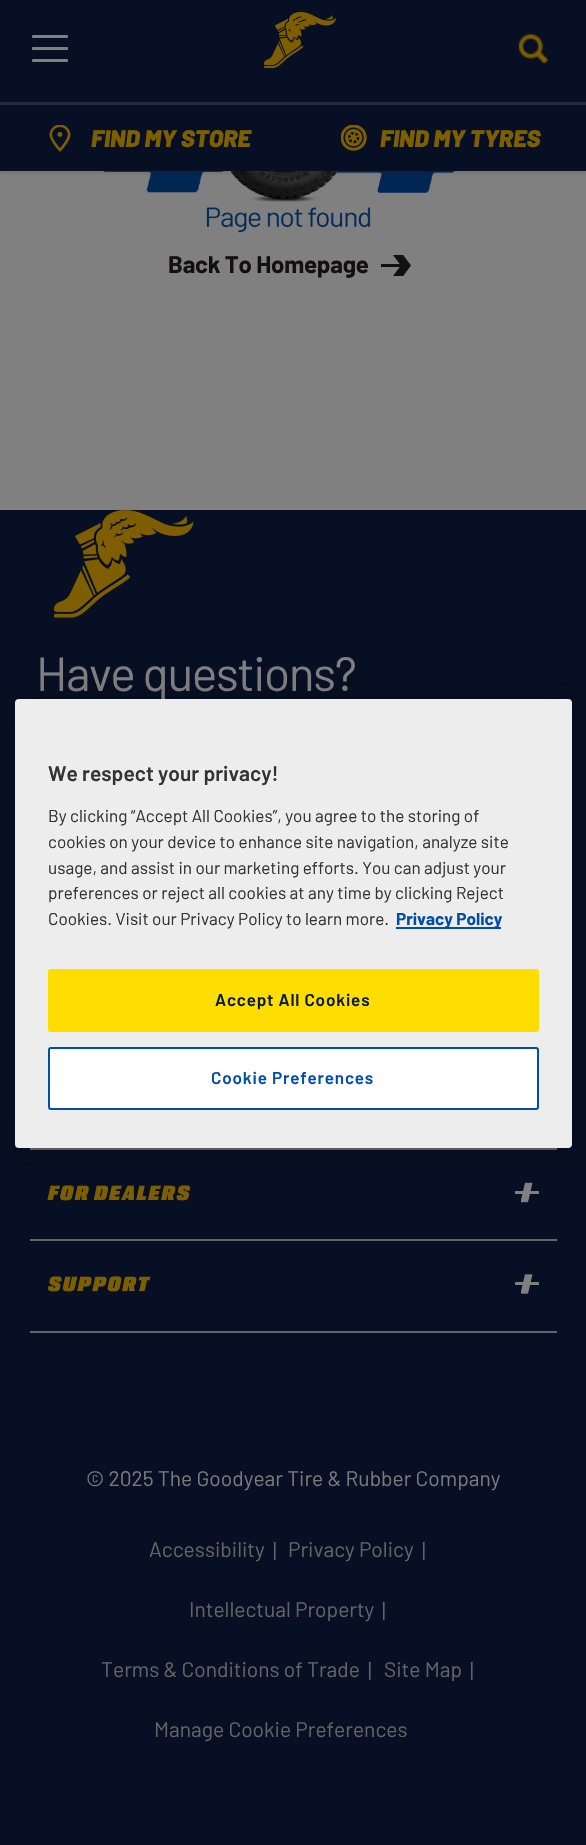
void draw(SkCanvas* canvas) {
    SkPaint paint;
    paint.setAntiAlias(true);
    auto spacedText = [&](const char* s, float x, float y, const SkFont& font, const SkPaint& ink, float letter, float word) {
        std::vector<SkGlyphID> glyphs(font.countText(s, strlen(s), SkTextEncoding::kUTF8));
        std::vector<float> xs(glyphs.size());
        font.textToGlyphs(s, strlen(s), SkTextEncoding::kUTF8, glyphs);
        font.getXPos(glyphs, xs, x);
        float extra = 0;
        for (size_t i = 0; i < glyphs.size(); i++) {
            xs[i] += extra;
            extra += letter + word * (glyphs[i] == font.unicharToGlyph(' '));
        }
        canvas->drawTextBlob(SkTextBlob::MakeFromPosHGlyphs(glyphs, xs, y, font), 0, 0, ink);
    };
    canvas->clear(0xFF808080);
    canvas->drawImageRect(SkImages::DeferredFromEncodedData(SkData::MakeFromFileName("img5.png")), SkRect::MakeXYWH(103, 171, 352, 62), SkSamplingOptions());
    paint.setColor(0x14000000);
    paint.setMaskFilter(SkMaskFilter::MakeBlur(kNormal_SkBlurStyle, 1.5f));
    canvas->drawRect(SkRect::MakeXYWH(0, 3, 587, 171), paint);
    paint.setMaskFilter(nullptr);
    paint.setColor(0xFF060F23);
    canvas->drawRect(SkRect::MakeXYWH(0, 0, 586, 171), paint);
    paint.setColor(0xFF808080);
    canvas->drawRoundRect(SkRect::MakeXYWH(32, 35, 36, 3), 1, 1, paint);
    canvas->drawRoundRect(SkRect::MakeXYWH(32, 47, 36, 3), 1, 1, paint);
    canvas->drawRoundRect(SkRect::MakeXYWH(32, 59, 36, 3), 1, 1, paint);
    canvas->drawImageRect(SkImages::DeferredFromEncodedData(SkData::MakeFromFileName("img1.png")), SkRect::MakeXYWH(264, 12, 72, 56), SkSamplingOptions());
    paint.setColor(0xFF080F1F);
    canvas->drawCircle(1.5f, 1.5f, 1.5f, paint);
    canvas->drawImageRect(SkImages::DeferredFromEncodedData(SkData::MakeFromFileName("img2.png")), SkRect::MakeXYWH(518, 34, 30, 30), SkSamplingOptions());
    paint.setColor(0xFF242B3A);
    canvas->drawRect(SkRect::MakeXYWH(0, 102, 586, 3), paint);
    canvas->drawImageRect(SkImages::DeferredFromEncodedData(SkData::MakeFromFileName("img3.png")), SkRect::MakeXYWH(49, 125, 22, 27), SkSamplingOptions());
    SkFont font1(fontMgr->matchFamilyStyle("Barlow", SkFontStyle(900, SkFontStyle::kNormal_Width, SkFontStyle::kItalic_Slant)), 24);
    font1.setSubpixel(true);
    paint.setColor(0xFF7E5F00);
    canvas->drawString("FIND MY STORE", 91, 147, font1, paint);
    canvas->drawImageRect(SkImages::DeferredFromEncodedData(SkData::MakeFromFileName("img4.png")), SkRect::MakeXYWH(341, 125, 26, 26), SkSamplingOptions());
    canvas->drawString("FIND MY TYRES", 380, 147, font1, paint);
    SkFont font2(fontMgr->matchFamilyStyle("Barlow", SkFontStyle::Bold()), 24);
    font2.setSubpixel(true);
    paint.setColor(0xFF121010);
    spacedText("Back To Homepage", 168, 273, font2, paint, -0.25f, 0);
    canvas->drawImageRect(SkImages::DeferredFromEncodedData(SkData::MakeFromFileName("img6.png")), SkRect::MakeXYWH(381, 255, 30, 21), SkSamplingOptions());
    paint.setColor(0xFF060F23);
    canvas->drawRect(SkRect::MakeXYWH(0, 510, 586, 1335), paint);
    canvas->drawImageRect(SkImages::DeferredFromEncodedData(SkData::MakeFromFileName("img7.png")), SkRect::MakeXYWH(54, 510, 140, 108), SkSamplingOptions());
    SkFont font3(fontMgr->matchFamilyStyle("Barlow", SkFontStyle::Normal()), 48);
    font3.setSubpixel(true);
    paint.setColor(0xFF808080);
    spacedText("Have questions?", 36, 691, font3, paint, -1.5f, 0);
    paint.setColor(0xFF646464);
    canvas->drawRect(SkRect::MakeXYWH(30, 1148, 527, 2), paint);
    canvas->drawRect(SkRect::MakeXYWH(30, 1239, 527, 2), paint);
    SkFont font4(fontMgr->matchFamilyStyle("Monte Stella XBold", SkFontStyle::BoldItalic()), 21);
    font4.setSubpixel(true);
    paint.setColor(0xFF7E5F00);
    spacedText("FOR DEALERS", 48, 1200, font4, paint, 1.75f, 0);
    canvas->drawImageRect(SkImages::DeferredFromEncodedData(SkData::MakeFromFileName("img8.png")), SkRect::MakeXYWH(521, 1182, 12, 21), SkSamplingOptions());
    paint.setColor(0xFF808080);
    canvas->drawRoundRect(SkRect::MakeXYWH(515, 1191, 24, 3), 0.5f, 0.5f, paint);
    paint.setColor(0xFF646464);
    canvas->drawRect(SkRect::MakeXYWH(30, 1331, 527, 2), paint);
    paint.setColor(0xFF7E5F00);
    spacedText("SUPPORT", 48, 1291, font4, paint, 1.75f, 0);
    canvas->drawImageRect(SkImages::DeferredFromEncodedData(SkData::MakeFromFileName("img9.png")), SkRect::MakeXYWH(521, 1274, 12, 20), SkSamplingOptions());
    paint.setColor(0xFF808080);
    canvas->drawRoundRect(SkRect::MakeXYWH(515, 1282, 24, 3), 0.5f, 0.5f, paint);
    SkFont font5(fontMgr->matchFamilyStyle("Barlow", SkFontStyle::Normal()), 21);
    font5.setSubpixel(true);
    paint.setColor(0xFF7A7A7A);
    canvas->drawString("© 2025 The Goodyear Tire & Rubber Company", 86, 1486, font5, paint);
    paint.setColor(0xFF646464);
    canvas->drawString("Accessibility", 149, 1557, font5, paint);
    canvas->drawString("|", 273, 1558, font5, paint);
    canvas->drawString("Privacy Policy", 288, 1557, font5, paint);
    canvas->drawString("|", 422, 1558, font5, paint);
    canvas->drawString("Intellectual Property", 189, 1617, font5, paint);
    canvas->drawString("|", 382, 1618, font5, paint);
    canvas->drawString("Terms & Conditions of Trade", 101, 1677, font5, paint);
    canvas->drawString("|", 368, 1678, font5, paint);
    canvas->drawString("Site Map", 384, 1677, font5, paint);
    canvas->drawString("|", 470, 1678, font5, paint);
    canvas->drawString("Manage Cookie Preferences", 154, 1737, font5, paint);
    paint.setColor(0x33000000);
    paint.setMaskFilter(SkMaskFilter::MakeBlur(kNormal_SkBlurStyle, 13.5f));
    canvas->drawRoundRect(SkRect::MakeXYWH(15, 699, 557, 449), 4, 4, paint);
    paint.setMaskFilter(nullptr);
    paint.setColor(0xFFEDEDED);
    canvas->drawRoundRect(SkRect::MakeXYWH(15, 699, 557, 449), 4, 4, paint);
    SkFont font6(fontMgr->matchFamilyStyle("Barlow", SkFontStyle(600, SkFontStyle::kNormal_Width, SkFontStyle::kUpright_Slant)), 21);
    font6.setSubpixel(true);
    paint.setColor(0xFF333333);
    canvas->drawString("We respect your privacy!", 48, 781, font6, paint);
    SkFont font7(fontMgr->matchFamilyStyle("Barlow", SkFontStyle::Normal()), 17.1f);
    font7.setSubpixel(true);
    canvas->drawString("By clicking “Accept All Cookies”, you agree to the storing of", 48, 822, font7, paint);
    canvas->drawString("cookies on your device to enhance site navigation, analyze site", 48, 848, font7, paint);
    canvas->drawString("usage, and assist in our marketing efforts. You can adjust your", 48, 874, font7, paint);
    canvas->drawString("preferences or reject all cookies at any time by clicking Reject", 48, 899, font7, paint);
    canvas->drawString("Cookies. Visit our Privacy Policy to learn more.", 48, 925, font7, paint);
    paint.setColor(0xFF004EA8);
    canvas->drawRect(SkRect::MakeXYWH(396, 927, 105, 2), paint);
    SkFont font8(fontMgr->matchFamilyStyle("Barlow", SkFontStyle::Bold()), 17.1f);
    font8.setSubpixel(true);
    canvas->drawString("Privacy Policy", 396, 925, font8, paint);
    paint.setColor(0xFFFFDD00);
    canvas->drawRoundRect(SkRect::MakeXYWH(49, 970, 489, 61), 2, 2, paint);
    paint.setStyle(SkPaint::kStroke_Style);
    paint.setStrokeWidth(2);
    canvas->drawRoundRect(SkRect::MakeXYWH(49, 970, 489, 61), 2, 2, paint);
    SkFont font9(fontMgr->matchFamilyStyle("Barlow", SkFontStyle(600, SkFontStyle::kNormal_Width, SkFontStyle::kUpright_Slant)), 17.1f);
    font9.setSubpixel(true);
    paint.setStyle(SkPaint::kFill_Style);
    paint.setColor(0xFF06184A);
    spacedText("Accept All Cookies", 215, 1006, font9, paint, 0.8f, 0);
    paint.setColor(0xFFFFFFFF);
    canvas->drawRoundRect(SkRect::MakeXYWH(49, 1048, 489, 61), 2, 2, paint);
    paint.setStyle(SkPaint::kStroke_Style);
    paint.setColor(0xFF004EA8);
    canvas->drawRoundRect(SkRect::MakeXYWH(49, 1048, 489, 61), 2, 2, paint);
    paint.setStyle(SkPaint::kFill_Style);
    spacedText("Cookie Preferences", 211, 1084, font9, paint, 0.8f, 0);
}
